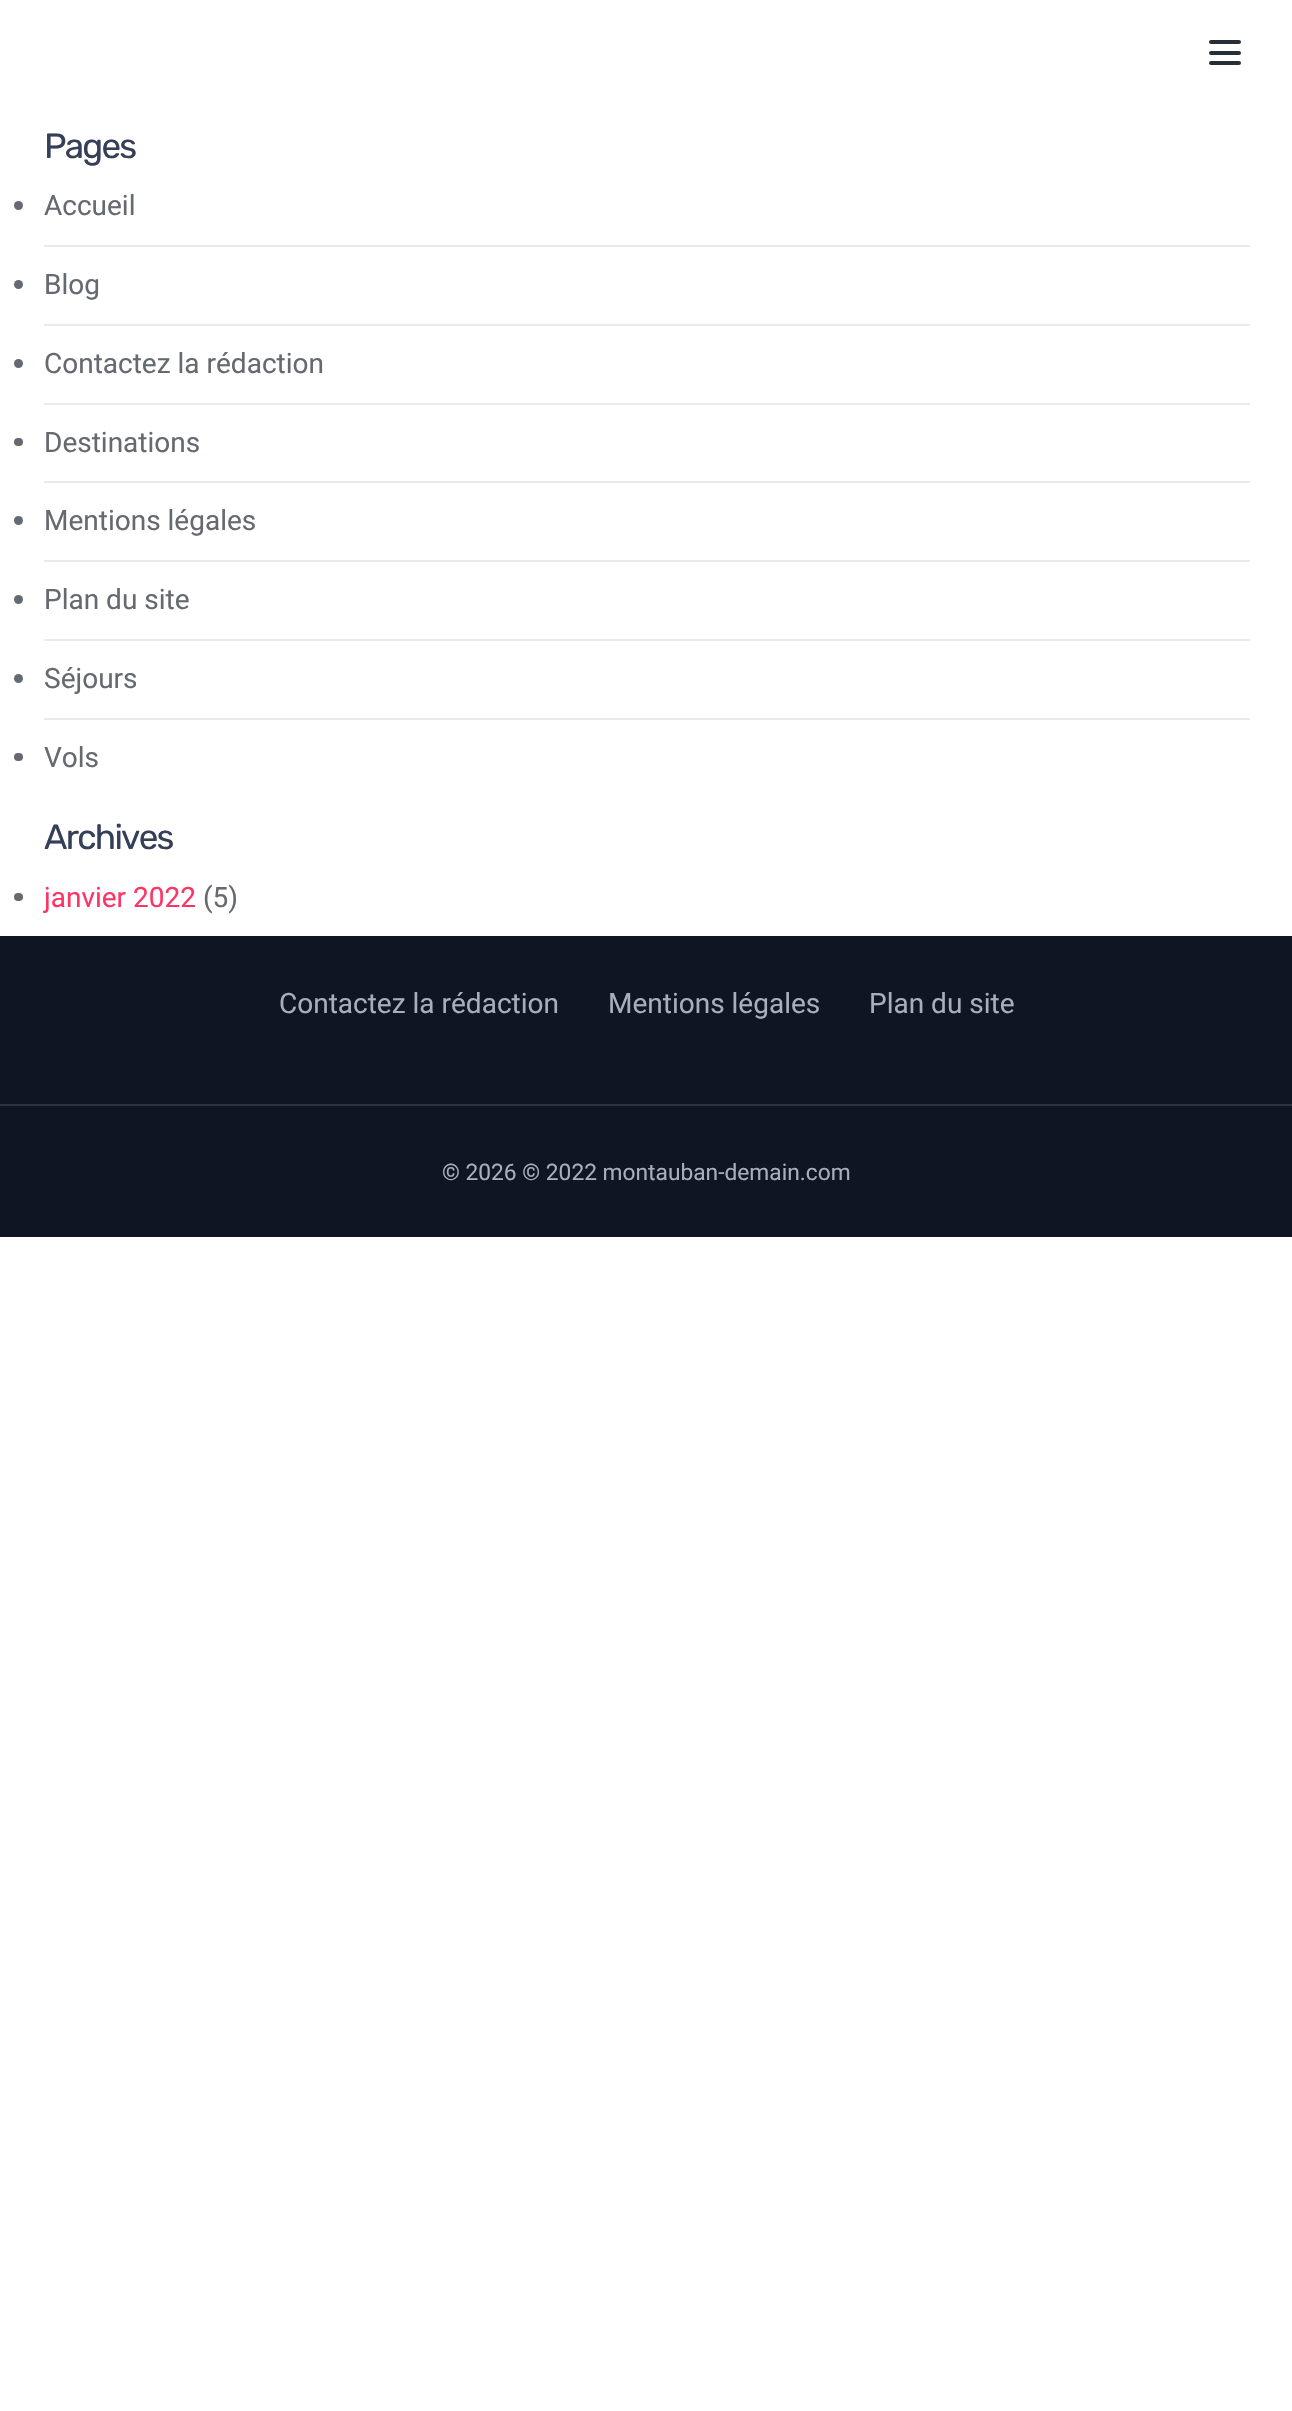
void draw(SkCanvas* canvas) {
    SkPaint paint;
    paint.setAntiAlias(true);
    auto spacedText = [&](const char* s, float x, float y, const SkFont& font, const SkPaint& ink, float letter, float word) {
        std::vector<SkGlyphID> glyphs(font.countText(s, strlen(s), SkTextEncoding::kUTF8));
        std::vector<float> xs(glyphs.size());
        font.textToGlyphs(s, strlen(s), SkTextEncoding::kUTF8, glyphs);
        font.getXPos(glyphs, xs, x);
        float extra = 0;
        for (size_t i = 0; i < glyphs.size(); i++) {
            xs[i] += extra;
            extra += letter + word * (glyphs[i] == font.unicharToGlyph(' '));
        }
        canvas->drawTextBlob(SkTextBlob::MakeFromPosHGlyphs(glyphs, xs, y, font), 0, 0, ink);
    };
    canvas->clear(0xFFFFFFFF);
    paint.setColor(0xFF282E38);
    canvas->drawRoundRect(SkRect::MakeXYWH(1209, 40, 32, 4), 2, 2, paint);
    canvas->drawRoundRect(SkRect::MakeXYWH(1209, 51, 32, 4), 2, 2, paint);
    canvas->drawRoundRect(SkRect::MakeXYWH(1209, 61, 32, 4), 2, 2, paint);
    SkFont font1(fontMgr->matchFamilyStyle("Rubik", SkFontStyle::Normal()), 35);
    font1.setSubpixel(true);
    paint.setColor(0xFF353F58);
    spacedText("Pages", 44, 158, font1, paint, -1.75f, 0);
    paint.setColor(0xFFE7EAF0);
    canvas->drawRect(SkRect::MakeXYWH(44, 245, 1206, 2), paint);
    paint.setColor(0xFF656970);
    canvas->drawCircle(18.5f, 205.5f, 4.5f, paint);
    SkFont font2(fontMgr->matchFamilyStyle("Roboto", SkFontStyle::Normal()), 28);
    font2.setSubpixel(true);
    canvas->drawString("Accueil", 44, 215, font2, paint);
    paint.setColor(0xFFE7EAF0);
    canvas->drawRect(SkRect::MakeXYWH(44, 324, 1206, 2), paint);
    paint.setColor(0xFF656970);
    canvas->drawCircle(18.5f, 284.5f, 4.5f, paint);
    canvas->drawString("Blog", 44, 294, font2, paint);
    paint.setColor(0xFFE7EAF0);
    canvas->drawRect(SkRect::MakeXYWH(44, 403, 1206, 2), paint);
    paint.setColor(0xFF656970);
    canvas->drawCircle(18.5f, 363.5f, 4.5f, paint);
    canvas->drawString("Contactez la rédaction", 44, 373, font2, paint);
    paint.setColor(0xFFE7EAF0);
    canvas->drawRect(SkRect::MakeXYWH(44, 481, 1206, 2), paint);
    paint.setColor(0xFF656970);
    canvas->drawRoundRect(SkRect::MakeXYWH(14, 438, 9, 8), 4, 4, paint);
    canvas->drawString("Destinations", 44, 452, font2, paint);
    paint.setColor(0xFFE7EAF0);
    canvas->drawRect(SkRect::MakeXYWH(44, 560, 1206, 2), paint);
    paint.setColor(0xFF656970);
    canvas->drawCircle(18.5f, 520.5f, 4.5f, paint);
    canvas->drawString("Mentions légales", 44, 530, font2, paint);
    paint.setColor(0xFFE7EAF0);
    canvas->drawRect(SkRect::MakeXYWH(44, 639, 1206, 2), paint);
    paint.setColor(0xFF656970);
    canvas->drawCircle(18.5f, 599.5f, 4.5f, paint);
    canvas->drawString("Plan du site", 44, 609, font2, paint);
    paint.setColor(0xFFE7EAF0);
    canvas->drawRect(SkRect::MakeXYWH(44, 718, 1206, 2), paint);
    paint.setColor(0xFF656970);
    canvas->drawCircle(18.5f, 678.5f, 4.5f, paint);
    canvas->drawString("Séjours", 44, 688, font2, paint);
    canvas->drawRoundRect(SkRect::MakeXYWH(14, 753, 9, 8), 4, 4, paint);
    canvas->drawString("Vols", 44, 767, font2, paint);
    paint.setColor(0xFF353F58);
    spacedText("Archives", 44, 849, font1, paint, -1.75f, 0);
    paint.setColor(0xFF656970);
    canvas->drawRoundRect(SkRect::MakeXYWH(14, 893, 9, 8), 4, 4, paint);
    paint.setColor(0xFFFF3465);
    canvas->drawString("janvier 2022", 44, 907, font2, paint);
    paint.setColor(0xFF656970);
    canvas->drawString("(5)", 203, 907, font2, paint);
    paint.setColor(0xFF101523);
    canvas->drawRect(SkRect::MakeXYWH(0, 936, 1292, 301), paint);
    paint.setColor(0xFF2C3242);
    canvas->drawRect(SkRect::MakeXYWH(0, 1104, 1292, 2), paint);
    paint.setColor(0xFFA7AFBA);
    canvas->drawString("Contactez la rédaction", 279, 1013, font2, paint);
    canvas->drawString("Mentions légales", 608, 1013, font2, paint);
    canvas->drawString("Plan du site", 869, 1013, font2, paint);
    SkFont font3(fontMgr->matchFamilyStyle("Roboto", SkFontStyle::Normal()), 22.75f);
    font3.setSubpixel(true);
    canvas->drawString("© 2026 © 2022 montauban-demain.com", 442, 1180, font3, paint);
}
